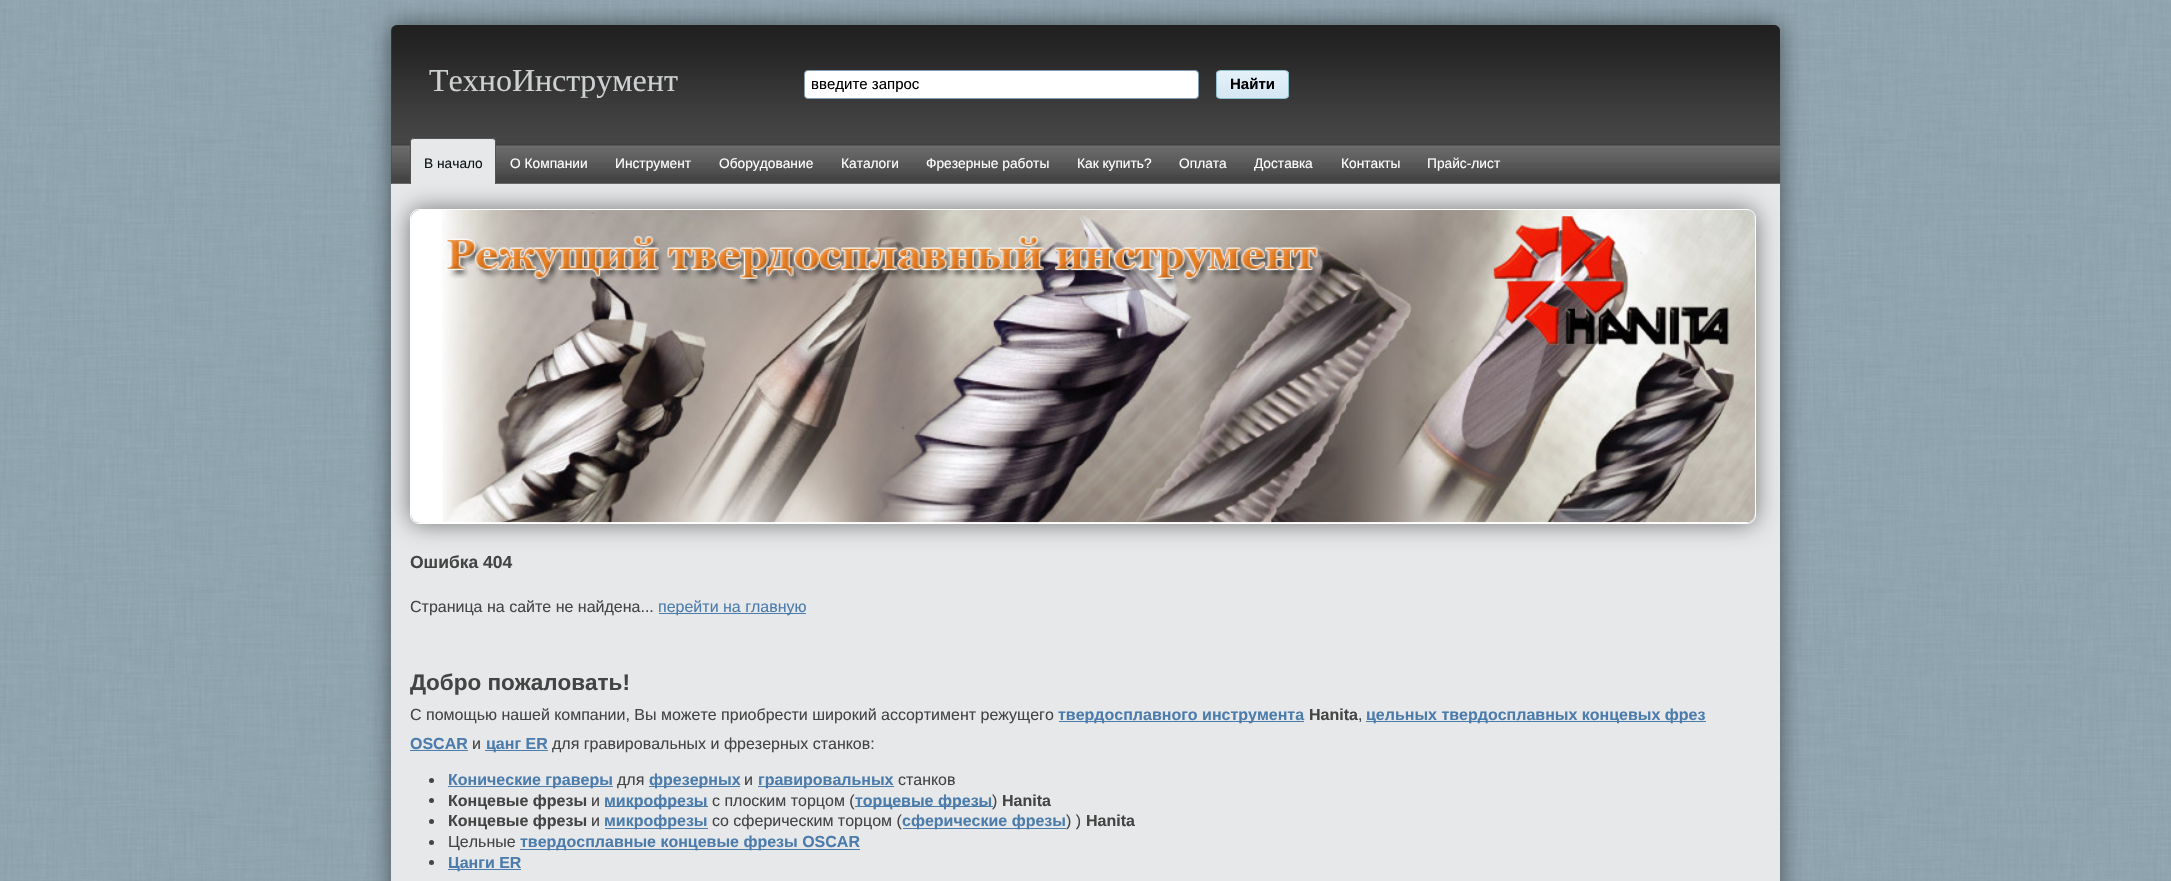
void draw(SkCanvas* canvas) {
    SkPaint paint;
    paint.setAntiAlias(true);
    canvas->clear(0xFFFFFFFF);
    canvas->drawImageRect(SkImages::DeferredFromEncodedData(SkData::MakeFromFileName("img1.png")), SkRect::MakeXYWH(0, 0, 2171, 881), SkSamplingOptions());
    paint.setColor(0x80000000);
    paint.setMaskFilter(SkMaskFilter::MakeBlur(kNormal_SkBlurStyle, 12.5f));
    canvas->drawRoundRect(SkRect::MakeXYWH(391, 25, 1389, 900), 6, 6, paint);
    paint.setMaskFilter(nullptr);
    paint.setColor(0xFF464646);
    canvas->drawPath(SkPathBuilder().moveTo(397, 25).lineTo(1774, 25).cubicTo(1777.5f, 25, 1780, 27.5f, 1780, 31).lineTo(1780, 184).lineTo(391, 184).lineTo(391, 31).cubicTo(391, 27.5f, 393.5f, 25, 397, 25).close().detach(), paint);
    canvas->drawImageRect(SkImages::DeferredFromEncodedData(SkData::MakeFromFileName("img2.png")), SkRect::MakeXYWH(391, 25, 1389, 150), SkSamplingOptions());
    SkFont font1(fontMgr->matchFamilyStyle("Liberation Serif", SkFontStyle::Normal()), 32);
    font1.setSubpixel(true);
    paint.setColor(0xFFCED1D2);
    canvas->drawString("ТехноИнструмент", 429, 91, font1, paint);
    paint.setColor(0xFFFFFFFF);
    canvas->drawRoundRect(SkRect::MakeXYWH(804.5f, 70.5f, 394, 28), 3.5f, 3.5f, paint);
    paint.setStyle(SkPaint::kStroke_Style);
    paint.setStrokeWidth(1);
    paint.setColor(0xFF7F9DB9);
    canvas->drawRoundRect(SkRect::MakeXYWH(804.5f, 70.5f, 394, 28), 3.5f, 3.5f, paint);
    SkFont font2(fontMgr->matchFamilyStyle("Liberation Sans", SkFontStyle::Normal()), 15);
    font2.setSubpixel(true);
    paint.setStyle(SkPaint::kFill_Style);
    paint.setColor(0xFF000000);
    canvas->drawString("введите запрос", 811, 89, font2, paint);
    canvas->save();
    canvas->clipPath(SkPathBuilder().moveTo(1220, 70).lineTo(1285, 70).cubicTo(1287, 70, 1289, 72, 1289, 74).lineTo(1289, 95).cubicTo(1289, 97, 1287, 99, 1285, 99).lineTo(1220, 99).cubicTo(1218, 99, 1216, 97, 1216, 95).lineTo(1216, 74).cubicTo(1216, 72, 1218, 70, 1220, 70).close().detach(), true);
    {
        const SkColor colors[] = {0xFFE4F1F9, 0xFFD5E7F3};
        const float stops[] = {0, 1};
        const SkPoint ends[] = {{1253, 71}, {1253, 98}};
        paint.setShader(SkGradientShader::MakeLinear(ends, colors, stops, 2, SkTileMode::kClamp));
        paint.setAlpha(255);
    }
    canvas->drawRect(SkRect::MakeXYWH(1216, 71, 73, 27), paint);
    canvas->restore();
    paint.setStyle(SkPaint::kStroke_Style);
    paint.setShader(nullptr);
    paint.setColor(0xFF8DC0CE);
    canvas->drawRoundRect(SkRect::MakeXYWH(1216.5f, 70.5f, 72, 28), 3.5f, 3.5f, paint);
    SkFont font3(fontMgr->matchFamilyStyle("Liberation Sans", SkFontStyle::Bold()), 15);
    font3.setSubpixel(true);
    paint.setStyle(SkPaint::kFill_Style);
    paint.setColor(0xFF000000);
    canvas->drawString("Найти", 1230, 89, font3, paint);
    canvas->drawImageRect(SkImages::DeferredFromEncodedData(SkData::MakeFromFileName("img3.png")), SkRect::MakeXYWH(391, 183, 1389, 1), SkSamplingOptions());
    canvas->save();
    canvas->clipPath(SkPathBuilder().moveTo(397, 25).lineTo(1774, 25).cubicTo(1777.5f, 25, 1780, 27.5f, 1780, 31).lineTo(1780, 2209).cubicTo(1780, 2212.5f, 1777.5f, 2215, 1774, 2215).lineTo(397, 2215).cubicTo(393.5f, 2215, 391, 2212.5f, 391, 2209).lineTo(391, 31).cubicTo(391, 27.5f, 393.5f, 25, 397, 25).close().detach(), true);
    paint.setColor(0x4D000000);
    paint.setMaskFilter(SkMaskFilter::MakeBlur(kNormal_SkBlurStyle, 6));
    canvas->drawRect(SkRect::MakeXYWH(391, 190, 1389, 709), paint);
    paint.setMaskFilter(nullptr);
    canvas->restore();
    paint.setColor(0xFFE6E8E9);
    canvas->drawPath(SkPathBuilder().moveTo(414, 138).lineTo(492, 138).cubicTo(494, 138, 496, 140, 496, 142).lineTo(496, 184).lineTo(410, 184).lineTo(410, 142).cubicTo(410, 140, 412, 138, 414, 138).close().detach(), paint);
    paint.setColor(0xFF555555);
    canvas->drawPath(SkPathBuilder(SkPathFillType::kEvenOdd).moveTo(414, 138).lineTo(492, 138).cubicTo(495, 138, 496, 139, 496, 141).lineTo(496, 184).lineTo(410, 184).lineTo(410, 141).cubicTo(410, 139, 412, 138, 414, 138).close().moveTo(414, 139).lineTo(492, 139).cubicTo(494, 139, 495, 140, 495, 141).lineTo(495, 184).lineTo(411, 184).lineTo(411, 141).cubicTo(411, 140, 412, 139, 414, 139).close().detach(), paint);
    SkFont font4(fontMgr->matchFamilyStyle("Liberation Sans", SkFontStyle::Normal()), 13.75f);
    font4.setSubpixel(true);
    paint.setColor(0xFF101517);
    canvas->drawString("В начало", 424, 168, font4, paint);
    paint.setColor(0xFFFFFFFF);
    canvas->drawString("О Компании", 510, 168, font4, paint);
    canvas->drawString("Инструмент", 615, 168, font4, paint);
    canvas->drawString("Оборудование", 719, 168, font4, paint);
    canvas->drawString("Каталоги", 841, 168, font4, paint);
    canvas->drawString("Фрезерные работы", 926, 168, font4, paint);
    canvas->drawString("Как купить?", 1077, 168, font4, paint);
    canvas->drawString("Оплата", 1179, 168, font4, paint);
    canvas->drawString("Доставка", 1254, 168, font4, paint);
    canvas->drawString("Контакты", 1341, 168, font4, paint);
    canvas->drawString("Прайс-лист", 1427, 168, font4, paint);
    paint.setColor(0xFFE6E8E9);
    canvas->drawRect(SkRect::MakeXYWH(391, 184, 1389, 697), paint);
    canvas->save();
    canvas->clipPath(SkPathBuilder().moveTo(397, 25).lineTo(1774, 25).cubicTo(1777.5f, 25, 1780, 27.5f, 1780, 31).lineTo(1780, 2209).cubicTo(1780, 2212.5f, 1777.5f, 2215, 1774, 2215).lineTo(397, 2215).cubicTo(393.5f, 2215, 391, 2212.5f, 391, 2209).lineTo(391, 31).cubicTo(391, 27.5f, 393.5f, 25, 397, 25).close().detach(), true);
    paint.setColor(0x80000000);
    paint.setMaskFilter(SkMaskFilter::MakeBlur(kNormal_SkBlurStyle, 12.5f));
    canvas->drawRoundRect(SkRect::MakeXYWH(410, 209, 1346, 315), 9, 9, paint);
    paint.setMaskFilter(nullptr);
    canvas->restore();
    paint.setStyle(SkPaint::kStroke_Style);
    paint.setColor(0xFFFFFFFF);
    canvas->drawRoundRect(SkRect::MakeXYWH(410.5f, 209.5f, 1345, 314), 8.5f, 8.5f, paint);
    canvas->save();
    canvas->clipPath(SkPathBuilder().moveTo(419, 210).lineTo(1747, 210).cubicTo(1751.5f, 210, 1755, 213.5f, 1755, 218).lineTo(1755, 515).cubicTo(1755, 519.5f, 1751.5f, 523, 1747, 523).lineTo(419, 523).cubicTo(414.5f, 523, 411, 519.5f, 411, 515).lineTo(411, 218).cubicTo(411, 213.5f, 414.5f, 210, 419, 210).close().detach(), true);
    paint.setStyle(SkPaint::kFill_Style);
    canvas->drawRoundRect(SkRect::MakeXYWH(411, 210, 1344, 313), 9, 9, paint);
    canvas->restore();
    canvas->drawImageRect(SkImages::DeferredFromEncodedData(SkData::MakeFromFileName("img4.png")), SkRect::MakeXYWH(441, 210, 1314, 313), SkSamplingOptions());
    SkFont font5(fontMgr->matchFamilyStyle("Liberation Sans", SkFontStyle::Bold()), 17.5f);
    font5.setSubpixel(true);
    paint.setColor(0xFF444444);
    canvas->drawString("Ошибка 404", 410, 568, font5, paint);
    SkFont font6(fontMgr->matchFamilyStyle("Liberation Sans", SkFontStyle::Normal()), 16);
    font6.setSubpixel(true);
    canvas->drawString("Страница на сайте не найдена...", 410, 612, font6, paint);
    paint.setColor(0xFF4C7CAC);
    canvas->drawRect(SkRect::MakeXYWH(659, 613, 147, 1), paint);
    canvas->drawString("перейти на главную", 658, 612, font6, paint);
    SkFont font7(fontMgr->matchFamilyStyle("Liberation Sans", SkFontStyle::Bold()), 22.5f);
    font7.setSubpixel(true);
    paint.setColor(0xFF444444);
    canvas->drawString("Добро пожаловать!", 410, 690, font7, paint);
    canvas->drawString("С помощью нашей компании, Вы можете приобрести широкий ассортимент режущего", 410, 720, font6, paint);
    paint.setColor(0xFF4C7CAC);
    canvas->drawRect(SkRect::MakeXYWH(1059, 721, 245, 1), paint);
    SkFont font8(fontMgr->matchFamilyStyle("Liberation Sans", SkFontStyle::Bold()), 16);
    font8.setSubpixel(true);
    canvas->drawString("твердосплавного инструмента", 1058, 720, font8, paint);
    paint.setColor(0xFF444444);
    canvas->drawString("Hanita", 1309, 720, font8, paint);
    canvas->drawString(",", 1358, 720, font6, paint);
    paint.setColor(0xFF4C7CAC);
    canvas->drawRect(SkRect::MakeXYWH(1366, 721, 340, 1), paint);
    canvas->drawString("цельных твердосплавных концевых фрез", 1366, 720, font8, paint);
    canvas->drawString("OSCAR", 410, 749, font8, paint);
    canvas->drawRect(SkRect::MakeXYWH(410, 750, 58, 1), paint);
    paint.setColor(0xFF444444);
    canvas->drawString("и", 472, 749, font6, paint);
    paint.setColor(0xFF4C7CAC);
    canvas->drawRect(SkRect::MakeXYWH(485, 750, 63, 1), paint);
    canvas->drawString("цанг ER", 486, 749, font8, paint);
    paint.setColor(0xFF444444);
    canvas->drawString("для гравировальных и фрезерных станков:", 552, 749, font6, paint);
    canvas->drawCircle(431.5f, 780.5f, 2.5f, paint);
    paint.setColor(0xFF4C7CAC);
    canvas->drawRect(SkRect::MakeXYWH(448, 786, 165, 1), paint);
    canvas->drawString("Конические граверы", 448, 785, font8, paint);
    paint.setColor(0xFF444444);
    canvas->drawString("для", 617, 785, font6, paint);
    paint.setColor(0xFF4C7CAC);
    canvas->drawRect(SkRect::MakeXYWH(649, 786, 91, 1), paint);
    canvas->drawString("фрезерных", 649, 785, font8, paint);
    paint.setColor(0xFF444444);
    canvas->drawString("и", 744, 785, font6, paint);
    paint.setColor(0xFF4C7CAC);
    canvas->drawRect(SkRect::MakeXYWH(758, 786, 136, 1), paint);
    canvas->drawString("гравировальных", 758, 785, font8, paint);
    paint.setColor(0xFF444444);
    canvas->drawString("станков", 898, 785, font6, paint);
    canvas->drawCircle(431.5f, 800.5f, 2.5f, paint);
    canvas->drawString("Концевые фрезы", 448, 806, font8, paint);
    canvas->drawString("и", 591, 806, font6, paint);
    paint.setColor(0xFF4C7CAC);
    canvas->drawRect(SkRect::MakeXYWH(605, 806, 103, 1), paint);
    canvas->drawString("микрофрезы", 604, 806, font8, paint);
    paint.setColor(0xFF444444);
    canvas->drawString("с плоским торцом (", 712, 806, font6, paint);
    paint.setColor(0xFF4C7CAC);
    canvas->drawRect(SkRect::MakeXYWH(855, 806, 138, 1), paint);
    canvas->drawString("торцевые фрезы", 855, 806, font8, paint);
    paint.setColor(0xFF444444);
    canvas->drawString(")", 992, 806, font6, paint);
    canvas->drawString("Hanita", 1002, 806, font8, paint);
    canvas->drawCircle(431.5f, 821.5f, 2.5f, paint);
    canvas->drawString("Концевые фрезы", 448, 826, font8, paint);
    canvas->drawString("и", 591, 826, font6, paint);
    paint.setColor(0xFF4C7CAC);
    canvas->drawRect(SkRect::MakeXYWH(605, 828, 103, 1), paint);
    canvas->drawString("микрофрезы", 604, 826, font8, paint);
    paint.setColor(0xFF444444);
    canvas->drawString("со сферическим торцом (", 712, 826, font6, paint);
    paint.setColor(0xFF4C7CAC);
    canvas->drawRect(SkRect::MakeXYWH(903, 828, 163, 1), paint);
    canvas->drawString("сферические фрезы", 902, 826, font8, paint);
    paint.setColor(0xFF444444);
    canvas->drawString(") )", 1066, 826, font6, paint);
    canvas->drawString("Hanita", 1086, 826, font8, paint);
    canvas->drawCircle(431.5f, 842.5f, 2.5f, paint);
    canvas->drawString("Цельные", 448, 847, font6, paint);
    paint.setColor(0xFF4C7CAC);
    canvas->drawRect(SkRect::MakeXYWH(520, 849, 340, 1), paint);
    canvas->drawString("твердосплавные концевые фрезы OSCAR", 520, 847, font8, paint);
    paint.setColor(0xFF444444);
    canvas->drawCircle(431.5f, 862.5f, 2.5f, paint);
    paint.setColor(0xFF4C7CAC);
    canvas->drawRect(SkRect::MakeXYWH(448, 869, 73, 1), paint);
    canvas->drawString("Цанги ER", 448, 868, font8, paint);
}
